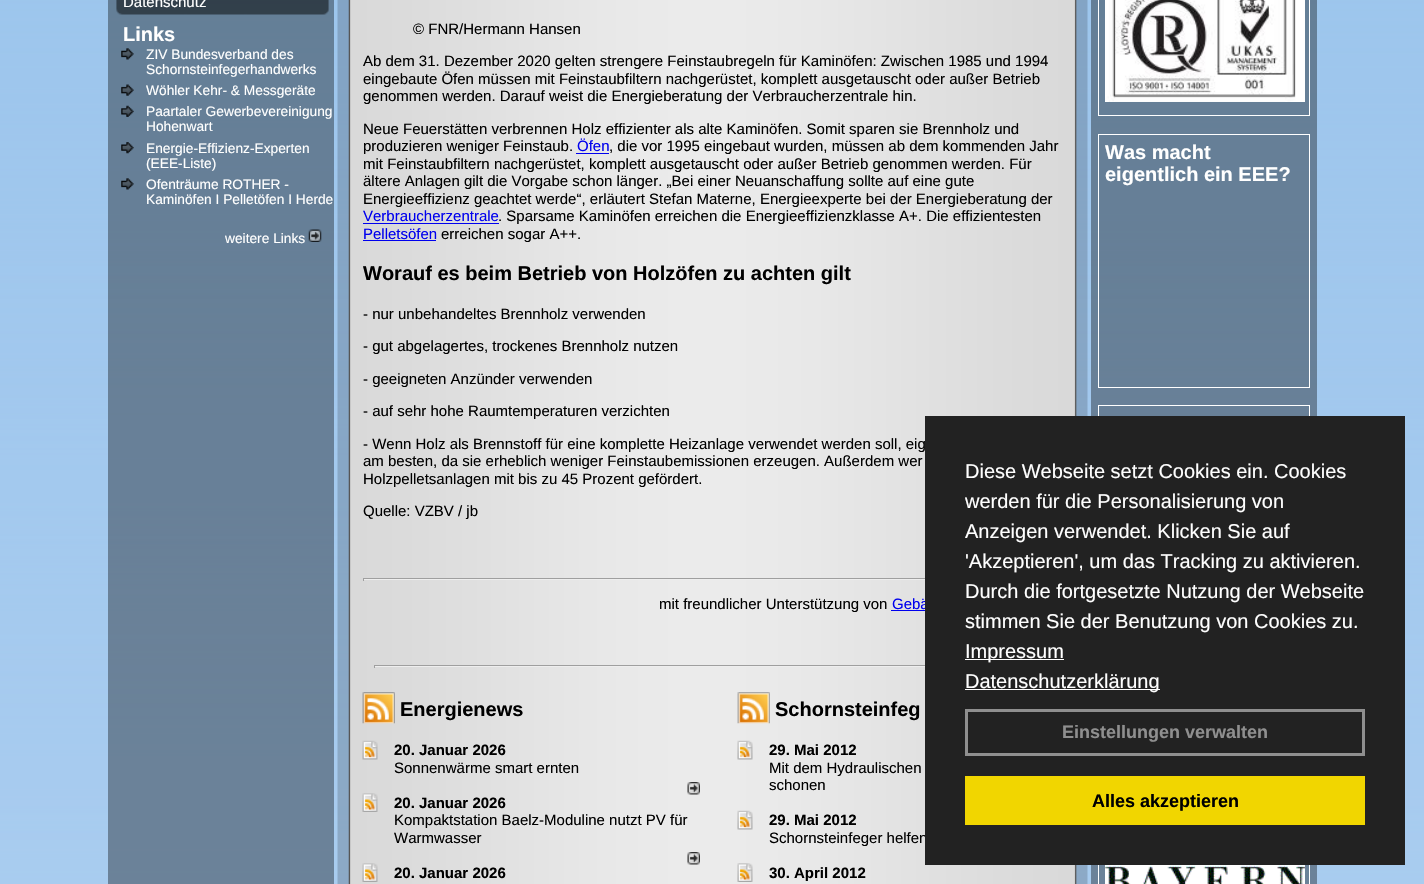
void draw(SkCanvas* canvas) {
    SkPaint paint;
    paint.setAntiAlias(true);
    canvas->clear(0xFFFFFFFF);
    canvas->drawImageRect(SkImages::DeferredFromEncodedData(SkData::MakeFromFileName("img1.png")), SkRect::MakeXYWH(0, 0, 1424, 884), SkSamplingOptions());
    paint.setColor(0x5C000000);
    canvas->drawRect(SkRect::MakeXYWH(108, 0, 226, 884), paint);
    canvas->drawImageRect(SkImages::DeferredFromEncodedData(SkData::MakeFromFileName("img2.png")), SkRect::MakeXYWH(116, 0, 213, 15), SkSamplingOptions());
    SkFont font1(fontMgr->matchFamilyStyle("Liberation Sans", SkFontStyle::Normal()), 15);
    font1.setSubpixel(true);
    paint.setColor(0xFFFFFFFF);
    canvas->drawString("Datenschutz", 123, 7, font1, paint);
    SkFont font2(fontMgr->matchFamilyStyle("Liberation Sans", SkFontStyle::Bold()), 20);
    font2.setSubpixel(true);
    canvas->drawString("Links", 123, 41, font2, paint);
    canvas->drawImageRect(SkImages::DeferredFromEncodedData(SkData::MakeFromFileName("img3.png")), SkRect::MakeXYWH(121, 48, 13, 12), SkSamplingOptions());
    SkFont font3(fontMgr->matchFamilyStyle("Liberation Sans", SkFontStyle::Normal()), 13.75f);
    font3.setSubpixel(true);
    canvas->drawString("ZIV Bundesverband des", 146, 59, font3, paint);
    canvas->drawString("Schornsteinfegerhandwerks", 146, 74, font3, paint);
    canvas->drawImageRect(SkImages::DeferredFromEncodedData(SkData::MakeFromFileName("img4.png")), SkRect::MakeXYWH(121, 84, 13, 12), SkSamplingOptions());
    canvas->drawString("Wöhler Kehr- & Messgeräte", 146, 95, font3, paint);
    canvas->drawImageRect(SkImages::DeferredFromEncodedData(SkData::MakeFromFileName("img5.png")), SkRect::MakeXYWH(121, 105, 13, 12), SkSamplingOptions());
    canvas->drawString("Paartaler Gewerbevereinigung", 146, 116, font3, paint);
    canvas->drawString("Hohenwart", 146, 131, font3, paint);
    canvas->drawImageRect(SkImages::DeferredFromEncodedData(SkData::MakeFromFileName("img6.png")), SkRect::MakeXYWH(121, 142, 13, 12), SkSamplingOptions());
    canvas->drawString("Energie-Effizienz-Experten", 146, 153, font3, paint);
    canvas->drawString("(EEE-Liste)", 146, 168, font3, paint);
    canvas->drawImageRect(SkImages::DeferredFromEncodedData(SkData::MakeFromFileName("img7.png")), SkRect::MakeXYWH(121, 178, 13, 12), SkSamplingOptions());
    canvas->drawString("Ofenträume ROTHER -", 146, 189, font3, paint);
    canvas->drawString("Kaminöfen I Pelletöfen I Herde", 146, 204, font3, paint);
    canvas->drawString("weitere Links", 225, 243, font3, paint);
    canvas->drawImageRect(SkImages::DeferredFromEncodedData(SkData::MakeFromFileName("img8.png")), SkRect::MakeXYWH(308, 229, 14, 13), SkSamplingOptions());
    canvas->drawImageRect(SkImages::DeferredFromEncodedData(SkData::MakeFromFileName("img9.png")), SkRect::MakeXYWH(337, 0, 751, 884), SkSamplingOptions());
    paint.setColor(0xFF000000);
    canvas->drawString("© FNR/Hermann Hansen", 413, 34, font1, paint);
    canvas->drawString("Ab dem 31. Dezember 2020 gelten strengere Feinstaubregeln für Kaminöfen: Zwischen 1985 und 1994", 363, 66, font1, paint);
    canvas->drawString("eingebaute Öfen müssen mit Feinstaubfiltern nachgerüstet, komplett ausgetauscht oder außer Betrieb", 363, 84, font1, paint);
    canvas->drawString("genommen werden. Darauf weist die Energieberatung der Verbraucherzentrale hin.", 363, 101, font1, paint);
    canvas->drawString("Neue Feuerstätten verbrennen Holz effizienter als alte Kaminöfen. Somit sparen sie Brennholz und", 363, 134, font1, paint);
    canvas->drawString("produzieren weniger Feinstaub.", 363, 151, font1, paint);
    paint.setColor(0xFF0000EE);
    canvas->drawString("Öfen", 577, 151, font1, paint);
    canvas->drawRect(SkRect::MakeXYWH(576, 153, 33, 1), paint);
    paint.setColor(0xFF000000);
    canvas->drawString(", die vor 1995 eingebaut wurden, müssen ab dem kommenden Jahr", 609, 151, font1, paint);
    canvas->drawString("mit Feinstaubfiltern nachgerüstet, komplett ausgetauscht oder außer Betrieb genommen werden. Für", 363, 169, font1, paint);
    canvas->drawString("ältere Anlagen gilt die Vorgabe schon länger. „Bei einer Neuanschaffung sollte auf eine gute", 363, 186, font1, paint);
    canvas->drawString("Energieeffizienz geachtet werde“, erläutert Stefan Materne, Energieexperte bei der Energieberatung der", 363, 204, font1, paint);
    paint.setColor(0xFF0000EE);
    canvas->drawString("Verbraucherzentrale", 363, 221, font1, paint);
    canvas->drawRect(SkRect::MakeXYWH(363, 223, 136, 1), paint);
    paint.setColor(0xFF000000);
    canvas->drawString(". Sparsame Kaminöfen erreichen die Energieeffizienzklasse A+. Die effizientesten", 498, 221, font1, paint);
    paint.setColor(0xFF0000EE);
    canvas->drawString("Pelletsöfen", 363, 239, font1, paint);
    canvas->drawRect(SkRect::MakeXYWH(363, 240, 73, 1), paint);
    paint.setColor(0xFF000000);
    canvas->drawString("erreichen sogar A++.", 441, 239, font1, paint);
    canvas->drawString("Worauf es beim Betrieb von Holzöfen zu achten gilt", 363, 280, font2, paint);
    canvas->drawString("- nur unbehandeltes Brennholz verwenden", 363, 319, font1, paint);
    canvas->drawString("- gut abgelagertes, trockenes Brennholz nutzen", 363, 351, font1, paint);
    canvas->drawString("- geeigneten Anzünder verwenden", 363, 384, font1, paint);
    canvas->drawString("- auf sehr hohe Raumtemperaturen verzichten", 363, 416, font1, paint);
    canvas->drawString("- Wenn Holz als Brennstoff für eine komplette Heizanlage verwendet werden soll, eig", 363, 449, font1, paint);
    canvas->drawString("am besten, da sie erheblich weniger Feinstaubemissionen erzeugen. Außerdem wer", 363, 466, font1, paint);
    canvas->drawString("Holzpelletsanlagen mit bis zu 45 Prozent gefördert.", 363, 484, font1, paint);
    canvas->drawString("Quelle: VZBV / jb", 363, 516, font1, paint);
    paint.setColor(0xFF9F9F9F);
    canvas->drawRect(SkRect::MakeXYWH(363, 578, 562, 1), paint);
    paint.setColor(0xFFEEEEEE);
    canvas->drawRect(SkRect::MakeXYWH(363, 579, 562, 1), paint);
    paint.setColor(0xFF9F9F9F);
    canvas->drawRect(SkRect::MakeXYWH(363, 578, 1, 3), paint);
    paint.setColor(0xFF000000);
    canvas->drawString("mit freundlicher Unterstützung von", 659, 609, font1, paint);
    paint.setColor(0xFF0000EE);
    canvas->drawString("Gebä", 892, 609, font1, paint);
    canvas->drawRect(SkRect::MakeXYWH(891, 610, 34, 1), paint);
    paint.setColor(0xFF9F9F9F);
    canvas->drawRect(SkRect::MakeXYWH(374, 665, 551, 1), paint);
    paint.setColor(0xFFEEEEEE);
    canvas->drawRect(SkRect::MakeXYWH(374, 666, 551, 1), paint);
    paint.setColor(0xFF9F9F9F);
    canvas->drawRect(SkRect::MakeXYWH(374, 665, 1, 3), paint);
    canvas->drawImageRect(SkImages::DeferredFromEncodedData(SkData::MakeFromFileName("img10.png")), SkRect::MakeXYWH(362, 692, 33, 32), SkSamplingOptions());
    paint.setColor(0xFF000000);
    canvas->drawString("Energienews", 400, 716, font2, paint);
    canvas->drawImageRect(SkImages::DeferredFromEncodedData(SkData::MakeFromFileName("img11.png")), SkRect::MakeXYWH(362, 740, 16, 20), SkSamplingOptions());
    SkFont font4(fontMgr->matchFamilyStyle("Liberation Sans", SkFontStyle::Bold()), 15);
    font4.setSubpixel(true);
    canvas->drawString("20. Januar 2026", 394, 755, font4, paint);
    canvas->drawString("Sonnenwärme smart ernten", 394, 773, font1, paint);
    canvas->drawImageRect(SkImages::DeferredFromEncodedData(SkData::MakeFromFileName("img12.png")), SkRect::MakeXYWH(687, 782, 13, 13), SkSamplingOptions());
    canvas->drawImageRect(SkImages::DeferredFromEncodedData(SkData::MakeFromFileName("img13.png")), SkRect::MakeXYWH(362, 793, 16, 19), SkSamplingOptions());
    canvas->drawString("20. Januar 2026", 394, 808, font4, paint);
    canvas->drawString("Kompaktstation Baelz-Moduline nutzt PV für", 394, 825, font1, paint);
    canvas->drawString("Warmwasser", 394, 843, font1, paint);
    canvas->drawImageRect(SkImages::DeferredFromEncodedData(SkData::MakeFromFileName("img12.png")), SkRect::MakeXYWH(687, 852, 13, 13), SkSamplingOptions());
    canvas->drawImageRect(SkImages::DeferredFromEncodedData(SkData::MakeFromFileName("img13.png")), SkRect::MakeXYWH(362, 863, 16, 19), SkSamplingOptions());
    canvas->drawString("20. Januar 2026", 394, 878, font4, paint);
    canvas->drawImageRect(SkImages::DeferredFromEncodedData(SkData::MakeFromFileName("img14.png")), SkRect::MakeXYWH(737, 692, 33, 32), SkSamplingOptions());
    canvas->drawString("Schornsteinfeg", 775, 716, font2, paint);
    canvas->drawImageRect(SkImages::DeferredFromEncodedData(SkData::MakeFromFileName("img15.png")), SkRect::MakeXYWH(737, 740, 16, 20), SkSamplingOptions());
    canvas->drawString("29. Mai 2012", 769, 755, font4, paint);
    canvas->drawString("Mit dem Hydraulischen", 769, 773, font1, paint);
    canvas->drawString("schonen", 769, 790, font1, paint);
    canvas->drawImageRect(SkImages::DeferredFromEncodedData(SkData::MakeFromFileName("img15.png")), SkRect::MakeXYWH(737, 810, 16, 20), SkSamplingOptions());
    canvas->drawString("29. Mai 2012", 769, 825, font4, paint);
    canvas->drawString("Schornsteinfeger helfen", 769, 843, font1, paint);
    canvas->drawImageRect(SkImages::DeferredFromEncodedData(SkData::MakeFromFileName("img16.png")), SkRect::MakeXYWH(737, 863, 16, 19), SkSamplingOptions());
    canvas->drawString("30. April 2012", 769, 878, font4, paint);
    paint.setColor(0x5C000000);
    canvas->drawRect(SkRect::MakeXYWH(1091, 0, 226, 884), paint);
    paint.setStyle(SkPaint::kStroke_Style);
    paint.setStrokeWidth(1);
    paint.setColor(0xFFFFFFFF);
    canvas->drawRect(SkRect::MakeXYWH(1098.5f, -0.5f, 211, 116), paint);
    canvas->drawImageRect(SkImages::DeferredFromEncodedData(SkData::MakeFromFileName("img17.png")), SkRect::MakeXYWH(1105, 0, 200, 102), SkSamplingOptions());
    canvas->drawRect(SkRect::MakeXYWH(1098.5f, 134.5f, 211, 253), paint);
    paint.setStyle(SkPaint::kFill_Style);
    canvas->drawString("Was macht", 1105, 159, font2, paint);
    canvas->drawString("eigentlich ein EEE?", 1105, 181, font2, paint);
    paint.setStyle(SkPaint::kStroke_Style);
    canvas->drawRect(SkRect::MakeXYWH(1098.5f, 405.5f, 211, 230), paint);
    canvas->drawRect(SkRect::MakeXYWH(1098.5f, 654.5f, 211, 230), paint);
    canvas->drawImageRect(SkImages::DeferredFromEncodedData(SkData::MakeFromFileName("img18.png")), SkRect::MakeXYWH(1105, 865, 200, 19), SkSamplingOptions());
    paint.setStyle(SkPaint::kFill_Style);
    paint.setColor(0xFF222222);
    canvas->drawRect(SkRect::MakeXYWH(925, 416, 480, 449), paint);
    SkFont font5(fontMgr->matchFamilyStyle("Liberation Sans", SkFontStyle::Normal()), 20);
    font5.setSubpixel(true);
    paint.setColor(0xFFFFFFFF);
    canvas->drawString("Diese Webseite setzt Cookies ein. Cookies", 965, 478, font5, paint);
    canvas->drawString("werden für die Personalisierung von", 965, 508, font5, paint);
    canvas->drawString("Anzeigen verwendet. Klicken Sie auf", 965, 538, font5, paint);
    canvas->drawString("'Akzeptieren', um das Tracking zu aktivieren.", 965, 568, font5, paint);
    canvas->drawString("Durch die fortgesetzte Nutzung der Webseite", 965, 598, font5, paint);
    canvas->drawString("stimmen Sie der Benutzung von Cookies zu.", 965, 628, font5, paint);
    canvas->drawRect(SkRect::MakeXYWH(965, 659, 99, 1), paint);
    canvas->drawString("Impressum", 965, 658, font5, paint);
    canvas->drawRect(SkRect::MakeXYWH(965, 689, 195, 1), paint);
    canvas->drawString("Datenschutzerklärung", 965, 688, font5, paint);
    paint.setStyle(SkPaint::kStroke_Style);
    paint.setStrokeWidth(3);
    paint.setColor(0xFF8F8F8F);
    canvas->drawRect(SkRect::MakeXYWH(966.5f, 710.5f, 397, 44), paint);
    SkFont font6(fontMgr->matchFamilyStyle("Liberation Sans", SkFontStyle::Bold()), 18);
    font6.setSubpixel(true);
    paint.setStyle(SkPaint::kFill_Style);
    canvas->drawString("Einstellungen verwalten", 1062, 738, font6, paint);
    paint.setColor(0xFFF1D600);
    canvas->drawRect(SkRect::MakeXYWH(965, 776, 400, 49), paint);
    paint.setColor(0xFF000000);
    canvas->drawString("Alles akzeptieren", 1092, 807, font6, paint);
}
